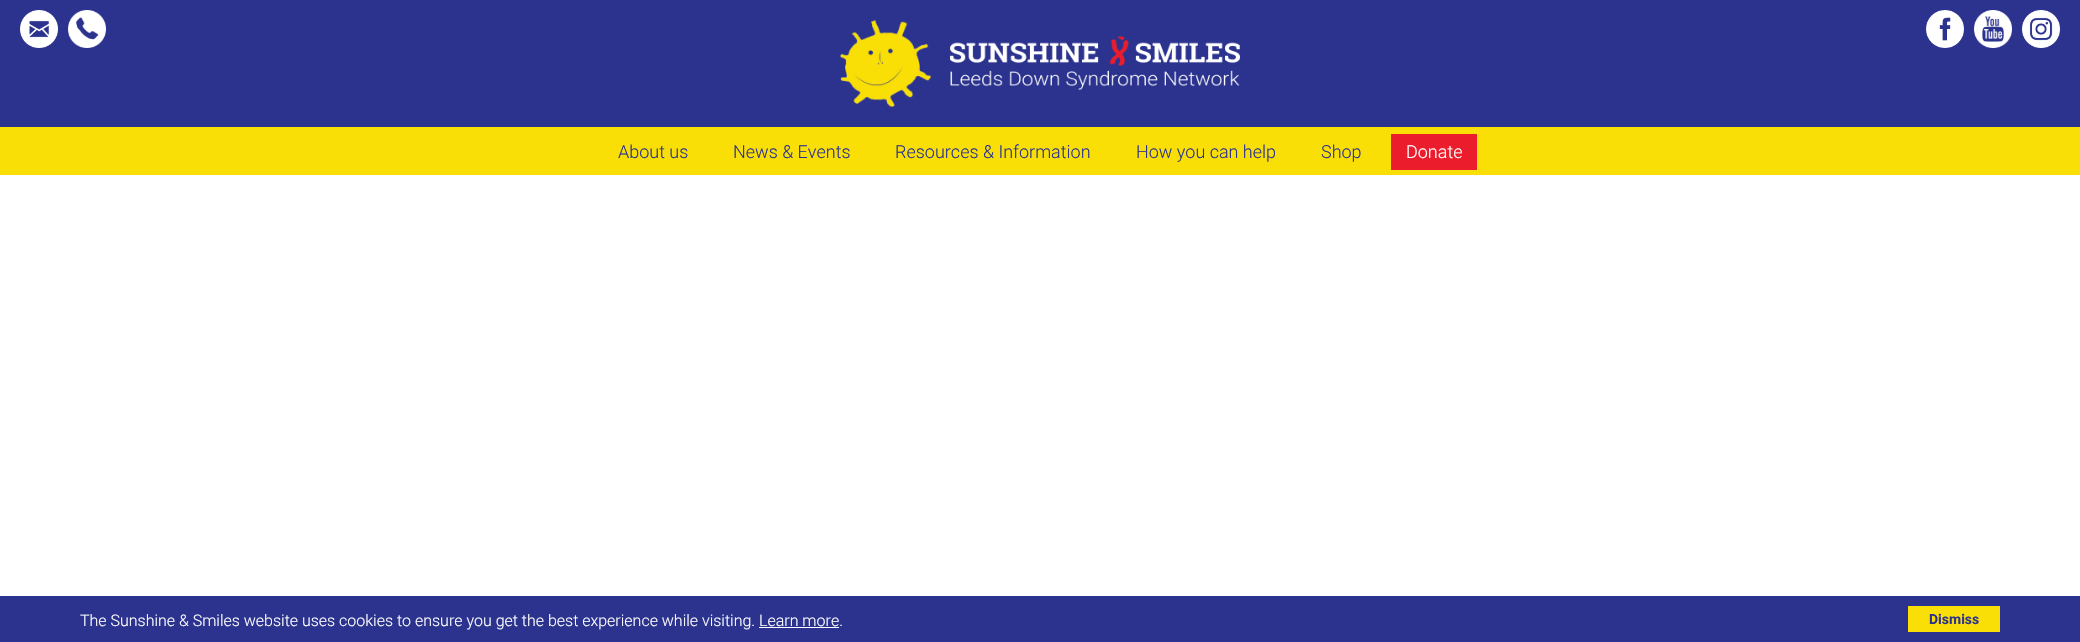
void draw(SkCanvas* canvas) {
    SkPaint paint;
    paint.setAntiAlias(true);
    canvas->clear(0xFFFFFFFF);
    paint.setColor(0xFF2C338E);
    canvas->drawRect(SkRect::MakeXYWH(0, 0, 2080, 127), paint);
    canvas->drawImageRect(SkImages::DeferredFromEncodedData(SkData::MakeFromFileName("img1.png")), SkRect::MakeXYWH(20, 10, 38, 38), SkSamplingOptions());
    canvas->drawImageRect(SkImages::DeferredFromEncodedData(SkData::MakeFromFileName("img2.png")), SkRect::MakeXYWH(68, 10, 38, 38), SkSamplingOptions());
    canvas->drawImageRect(SkImages::DeferredFromEncodedData(SkData::MakeFromFileName("img3.png")), SkRect::MakeXYWH(840, 20, 400, 87), SkSamplingOptions());
    canvas->drawImageRect(SkImages::DeferredFromEncodedData(SkData::MakeFromFileName("img4.png")), SkRect::MakeXYWH(1926, 10, 38, 38), SkSamplingOptions());
    canvas->drawImageRect(SkImages::DeferredFromEncodedData(SkData::MakeFromFileName("img5.png")), SkRect::MakeXYWH(1974, 10, 38, 38), SkSamplingOptions());
    canvas->drawImageRect(SkImages::DeferredFromEncodedData(SkData::MakeFromFileName("img6.png")), SkRect::MakeXYWH(2022, 10, 38, 38), SkSamplingOptions());
    paint.setColor(0xFFF9DF06);
    canvas->drawRect(SkRect::MakeXYWH(0, 127, 2080, 48), paint);
    SkFont font1(fontMgr->matchFamilyStyle("Roboto", SkFontStyle(300, SkFontStyle::kNormal_Width, SkFontStyle::kUpright_Slant)), 18);
    font1.setSubpixel(true);
    paint.setColor(0xFF2C338E);
    canvas->drawString("About us", 618, 158, font1, paint);
    canvas->drawString("News & Events", 733, 158, font1, paint);
    canvas->drawString("Resources & Information", 895, 158, font1, paint);
    canvas->drawString("How you can help", 1136, 158, font1, paint);
    canvas->drawString("Shop", 1321, 158, font1, paint);
    paint.setColor(0xFFEB1C2C);
    canvas->drawRect(SkRect::MakeXYWH(1391, 134, 86, 36), paint);
    paint.setColor(0xFFFFFFFF);
    canvas->drawString("Donate", 1406, 158, font1, paint);
    paint.setColor(0xFF2C338E);
    canvas->drawRect(SkRect::MakeXYWH(0, 596, 2080, 46), paint);
    SkFont font2(fontMgr->matchFamilyStyle("Roboto", SkFontStyle(300, SkFontStyle::kNormal_Width, SkFontStyle::kUpright_Slant)), 16);
    font2.setSubpixel(true);
    paint.setColor(0xFFFFFFFF);
    canvas->drawString("The Sunshine & Smiles website uses cookies to ensure you get the best experience while visiting. Learn more.", 80, 626, font2, paint);
    canvas->drawRect(SkRect::MakeXYWH(759, 627, 80, 1), paint);
    paint.setColor(0xFFF9DF06);
    canvas->drawRect(SkRect::MakeXYWH(1908, 606, 92, 26), paint);
    SkFont font3(fontMgr->matchFamilyStyle("Roboto", SkFontStyle::Bold()), 14);
    font3.setSubpixel(true);
    paint.setColor(0xFF2C338E);
    canvas->drawString("Dismiss", 1929, 624, font3, paint);
}
